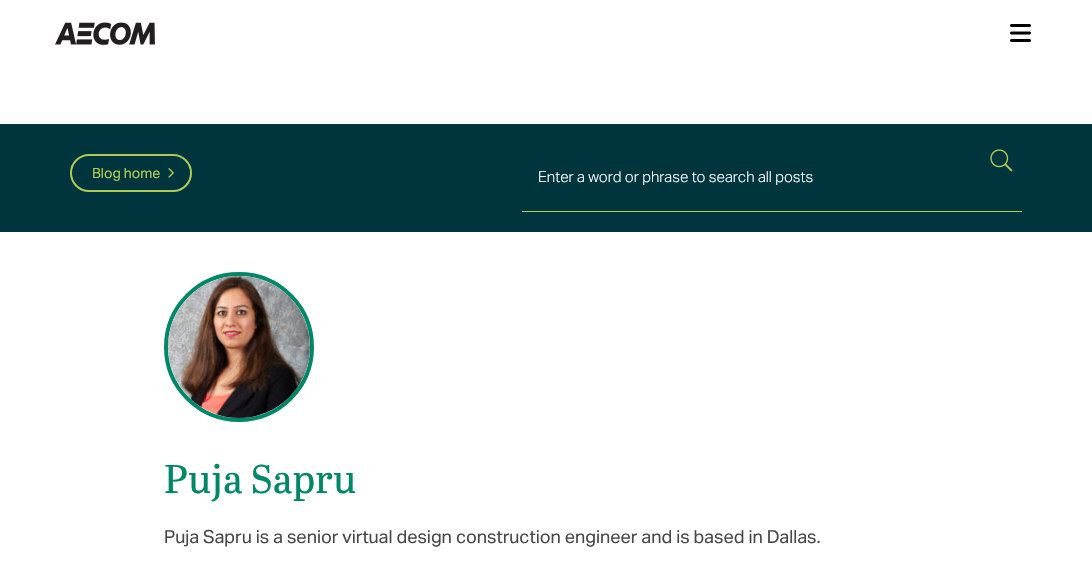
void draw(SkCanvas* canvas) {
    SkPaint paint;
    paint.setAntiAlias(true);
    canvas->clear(0xFFFFFFFF);
    canvas->drawImageRect(SkImages::DeferredFromEncodedData(SkData::MakeFromFileName("img1.png")), SkRect::MakeXYWH(55, 22, 100, 23), SkSamplingOptions());
    canvas->drawImageRect(SkImages::DeferredFromEncodedData(SkData::MakeFromFileName("img2.png")), SkRect::MakeXYWH(1010, 24, 21, 18), SkSamplingOptions());
    paint.setColor(0xFF00353E);
    canvas->drawRect(SkRect::MakeXYWH(0, 124, 1092, 108), paint);
    paint.setStyle(SkPaint::kStroke_Style);
    paint.setStrokeWidth(2);
    paint.setColor(0xFFAECC53);
    canvas->drawRoundRect(SkRect::MakeXYWH(71, 155, 120, 36), 18, 18, paint);
    SkFont font1(fontMgr->matchFamilyStyle("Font", SkFontStyle::Normal()), 14);
    font1.setSubpixel(true);
    paint.setStyle(SkPaint::kFill_Style);
    canvas->drawString("Blog home", 92, 178, font1, paint);
    canvas->drawImageRect(SkImages::DeferredFromEncodedData(SkData::MakeFromFileName("img3.png")), SkRect::MakeXYWH(168, 168, 6, 10), SkSamplingOptions());
    canvas->drawRect(SkRect::MakeXYWH(522, 211, 500, 1), paint);
    canvas->drawImageRect(SkImages::DeferredFromEncodedData(SkData::MakeFromFileName("img4.png")), SkRect::MakeXYWH(990, 149, 23, 23), SkSamplingOptions());
    SkFont font2(fontMgr->matchFamilyStyle("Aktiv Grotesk", SkFontStyle(300, SkFontStyle::kNormal_Width, SkFontStyle::kUpright_Slant)), 15);
    font2.setSubpixel(true);
    paint.setColor(0xFFFFFFFF);
    canvas->drawString("Enter a word or phrase to search all posts", 538, 182, font2, paint);
    paint.setStyle(SkPaint::kStroke_Style);
    paint.setStrokeWidth(4);
    paint.setColor(0xFF008768);
    canvas->drawCircle(239, 347, 73, paint);
    canvas->drawImageRect(SkImages::DeferredFromEncodedData(SkData::MakeFromFileName("img5.png")), SkRect::MakeXYWH(168, 276, 142, 142), SkSamplingOptions());
    SkFont font3(fontMgr->matchFamilyStyle("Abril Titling", SkFontStyle::Normal()), 40);
    font3.setSubpixel(true);
    paint.setStyle(SkPaint::kFill_Style);
    canvas->drawString("Puja Sapru", 164, 493, font3, paint);
    SkFont font4(fontMgr->matchFamilyStyle("Font", SkFontStyle::Normal()), 18);
    font4.setSubpixel(true);
    paint.setColor(0xFF484848);
    canvas->drawString("Puja Sapru is a senior virtual design construction engineer and is based in Dallas.", 164, 543, font4, paint);
}
